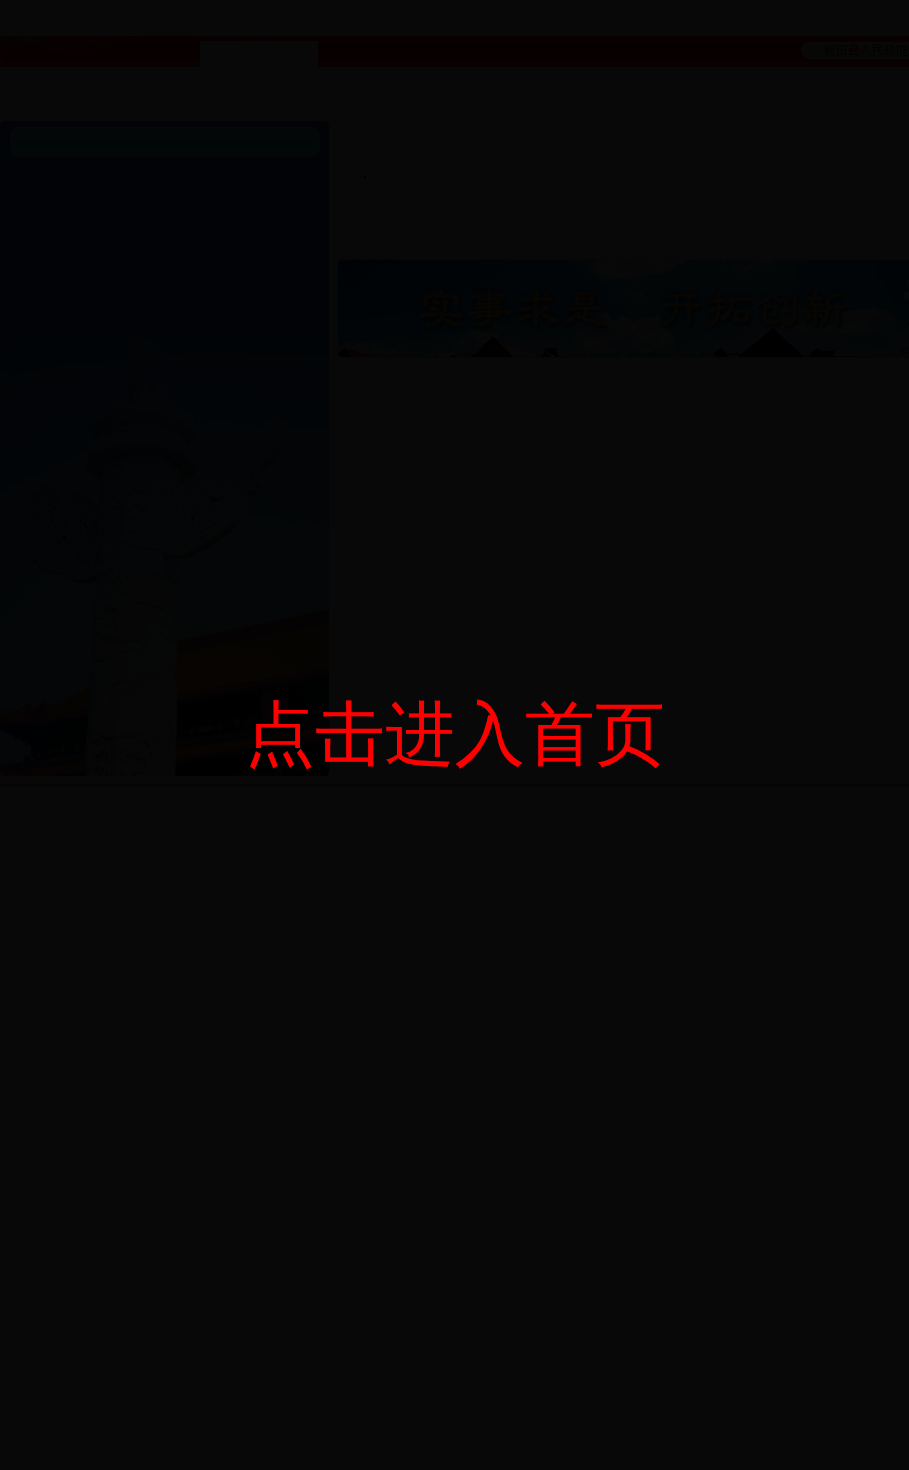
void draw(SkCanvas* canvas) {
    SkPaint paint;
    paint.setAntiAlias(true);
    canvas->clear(0xFF080808);
    canvas->drawImageRect(SkImages::DeferredFromEncodedData(SkData::MakeFromFileName("img1.png")), SkRect::MakeXYWH(0, 36, 909, 31), SkSamplingOptions());
    paint.setColor(0xFF080808);
    canvas->drawRect(SkRect::MakeXYWH(200, 41, 118, 26), paint);
    canvas->drawImageRect(SkImages::DeferredFromEncodedData(SkData::MakeFromFileName("img2.png")), SkRect::MakeXYWH(0, 121, 329, 44), SkSamplingOptions());
    canvas->drawImageRect(SkImages::DeferredFromEncodedData(SkData::MakeFromFileName("img3.png")), SkRect::MakeXYWH(0, 165, 329, 308), SkSamplingOptions());
    canvas->drawImageRect(SkImages::DeferredFromEncodedData(SkData::MakeFromFileName("img4.png")), SkRect::MakeXYWH(23, 192, 4, 7), SkSamplingOptions());
    canvas->drawImageRect(SkImages::DeferredFromEncodedData(SkData::MakeFromFileName("img4.png")), SkRect::MakeXYWH(23, 217, 4, 7), SkSamplingOptions());
    canvas->drawImageRect(SkImages::DeferredFromEncodedData(SkData::MakeFromFileName("img4.png")), SkRect::MakeXYWH(23, 242, 4, 7), SkSamplingOptions());
    canvas->drawImageRect(SkImages::DeferredFromEncodedData(SkData::MakeFromFileName("img4.png")), SkRect::MakeXYWH(23, 267, 4, 7), SkSamplingOptions());
    canvas->drawImageRect(SkImages::DeferredFromEncodedData(SkData::MakeFromFileName("img4.png")), SkRect::MakeXYWH(23, 292, 4, 7), SkSamplingOptions());
    canvas->drawImageRect(SkImages::DeferredFromEncodedData(SkData::MakeFromFileName("img5.png")), SkRect::MakeXYWH(0, 473, 329, 303), SkSamplingOptions());
    paint.setColor(0xFF020000);
    canvas->drawRect(SkRect::MakeXYWH(364, 176, 2, 2), paint);
    canvas->drawImageRect(SkImages::DeferredFromEncodedData(SkData::MakeFromFileName("img6.png")), SkRect::MakeXYWH(337, 259, 572, 99), SkSamplingOptions());
    SkFont font1(fontMgr->matchFamilyStyle("WenQuanYi Zen Hei", SkFontStyle(500, SkFontStyle::kNormal_Width, SkFontStyle::kUpright_Slant)), 70);
    font1.setSubpixel(true);
    paint.setColor(0xFFFF0000);
    canvas->drawString("点击进入首页", 245, 758, font1, paint);
    paint.setColor(0xFF070504);
    canvas->drawRect(SkRect::MakeXYWH(0, 784, 909, 3), paint);
}
